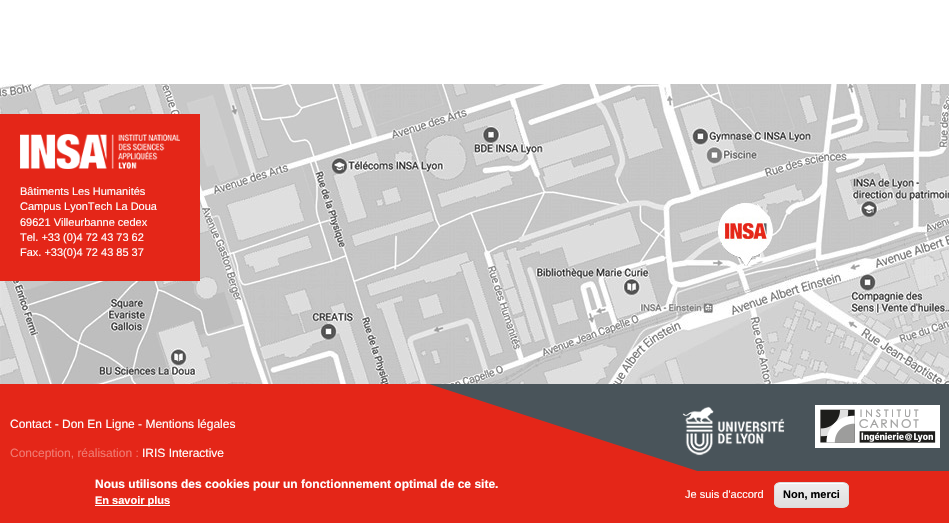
void draw(SkCanvas* canvas) {
    SkPaint paint;
    paint.setAntiAlias(true);
    canvas->clear(0xFFFFFFFF);
    canvas->drawImageRect(SkImages::DeferredFromEncodedData(SkData::MakeFromFileName("img1.png")), SkRect::MakeXYWH(0, 84, 949, 300), SkSamplingOptions());
    paint.setColor(0xFFE42618);
    canvas->drawRect(SkRect::MakeXYWH(0, 114, 200, 167), paint);
    canvas->drawImageRect(SkImages::DeferredFromEncodedData(SkData::MakeFromFileName("img2.png")), SkRect::MakeXYWH(20, 134, 160, 35), SkSamplingOptions());
    SkFont font1(fontMgr->matchFamilyStyle("Liberation Sans", SkFontStyle::Normal()), 11);
    font1.setSubpixel(true);
    paint.setColor(0xFFFFFFFF);
    canvas->drawString("Bâtiments Les Humanités", 20, 195, font1, paint);
    canvas->drawString("Campus LyonTech La Doua", 20, 210, font1, paint);
    canvas->drawString("69621 Villeurbanne cedex", 20, 226, font1, paint);
    canvas->drawString("Tel. +33 (0)4 72 43 73 62", 20, 241, font1, paint);
    canvas->drawString("Fax. +33(0)4 72 43 85 37", 20, 256, font1, paint);
    paint.setColor(0xFF49545A);
    canvas->drawRect(SkRect::MakeXYWH(429, 384, 520, 87), paint);
    paint.setColor(0xFFE42618);
    canvas->drawPath(SkPathBuilder().moveTo(-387, 384).lineTo(429, 384).lineTo(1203, 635).lineTo(387, 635).close().detach(), paint);
    canvas->drawImageRect(SkImages::DeferredFromEncodedData(SkData::MakeFromFileName("img3.png")), SkRect::MakeXYWH(815, 405, 125, 43), SkSamplingOptions());
    SkFont font2(fontMgr->matchFamilyStyle("Liberation Sans", SkFontStyle::Normal()), 12);
    font2.setSubpixel(true);
    paint.setColor(0xFFFFFFFF);
    canvas->drawString("Contact - Don En Ligne - Mentions légales", 10, 428, font2, paint);
    canvas->drawImageRect(SkImages::DeferredFromEncodedData(SkData::MakeFromFileName("img4.png")), SkRect::MakeXYWH(682, 406, 103, 50), SkSamplingOptions());
    paint.setColor(0xFFF07B72);
    canvas->drawString("Conception, réalisation :", 10, 457, font2, paint);
    paint.setColor(0xFFFFFFFF);
    canvas->drawString("IRIS Interactive", 142, 457, font2, paint);
    paint.setColor(0xFFE42618);
    canvas->drawRect(SkRect::MakeXYWH(0, 471, 949, 52), paint);
    SkFont font3(fontMgr->matchFamilyStyle("Liberation Sans", SkFontStyle::Bold()), 12);
    font3.setSubpixel(true);
    paint.setColor(0xFFFFFFFF);
    canvas->drawString("Nous utilisons des cookies pour un fonctionnement optimal de ce site.", 95, 488, font3, paint);
    canvas->drawRect(SkRect::MakeXYWH(95, 505, 75, 1), paint);
    SkFont font4(fontMgr->matchFamilyStyle("Liberation Sans", SkFontStyle::Bold()), 11);
    font4.setSubpixel(true);
    canvas->drawString("En savoir plus", 95, 504, font4, paint);
    canvas->drawString("Je suis d'accord", 685, 498, font1, paint);
    canvas->save();
    canvas->clipPath(SkPathBuilder().moveTo(780, 482).lineTo(843, 482).cubicTo(846.5f, 482, 849, 484.5f, 849, 488).lineTo(849, 502).cubicTo(849, 505.5f, 846.5f, 508, 843, 508).lineTo(780, 508).cubicTo(776.5f, 508, 774, 505.5f, 774, 502).lineTo(774, 488).cubicTo(774, 484.5f, 776.5f, 482, 780, 482).close().detach(), true);
    {
        const SkColor colors[] = {0xFFEDEDED, 0xFFDFDFDF};
        const float stops[] = {0.05f, 1};
        const SkPoint ends[] = {{812, 483}, {812, 507}};
        paint.setShader(SkGradientShader::MakeLinear(ends, colors, stops, 2, SkTileMode::kClamp));
        paint.setAlpha(255);
    }
    canvas->drawRect(SkRect::MakeXYWH(774, 483, 75, 24), paint);
    canvas->restore();
    paint.setShader(nullptr);
    paint.setColor(0xFFFFFFFF);
    canvas->drawPath(SkPathBuilder().moveTo(780, 484).lineTo(843, 484).cubicTo(846, 484, 848, 486, 848, 489).cubicTo(848, 481, 838, 483, 832, 483).lineTo(790, 483).cubicTo(785, 483, 775, 481, 775, 489).cubicTo(775, 486, 777, 484, 780, 484).close().detach(), paint);
    paint.setStyle(SkPaint::kStroke_Style);
    paint.setStrokeWidth(1);
    paint.setColor(0xFFDCDCDC);
    canvas->drawRoundRect(SkRect::MakeXYWH(774.5f, 482.5f, 74, 25), 5.5f, 5.5f, paint);
    paint.setStyle(SkPaint::kFill_Style);
    paint.setColor(0xFF000000);
    canvas->drawString("Non, merci", 783, 498, font4, paint);
}
